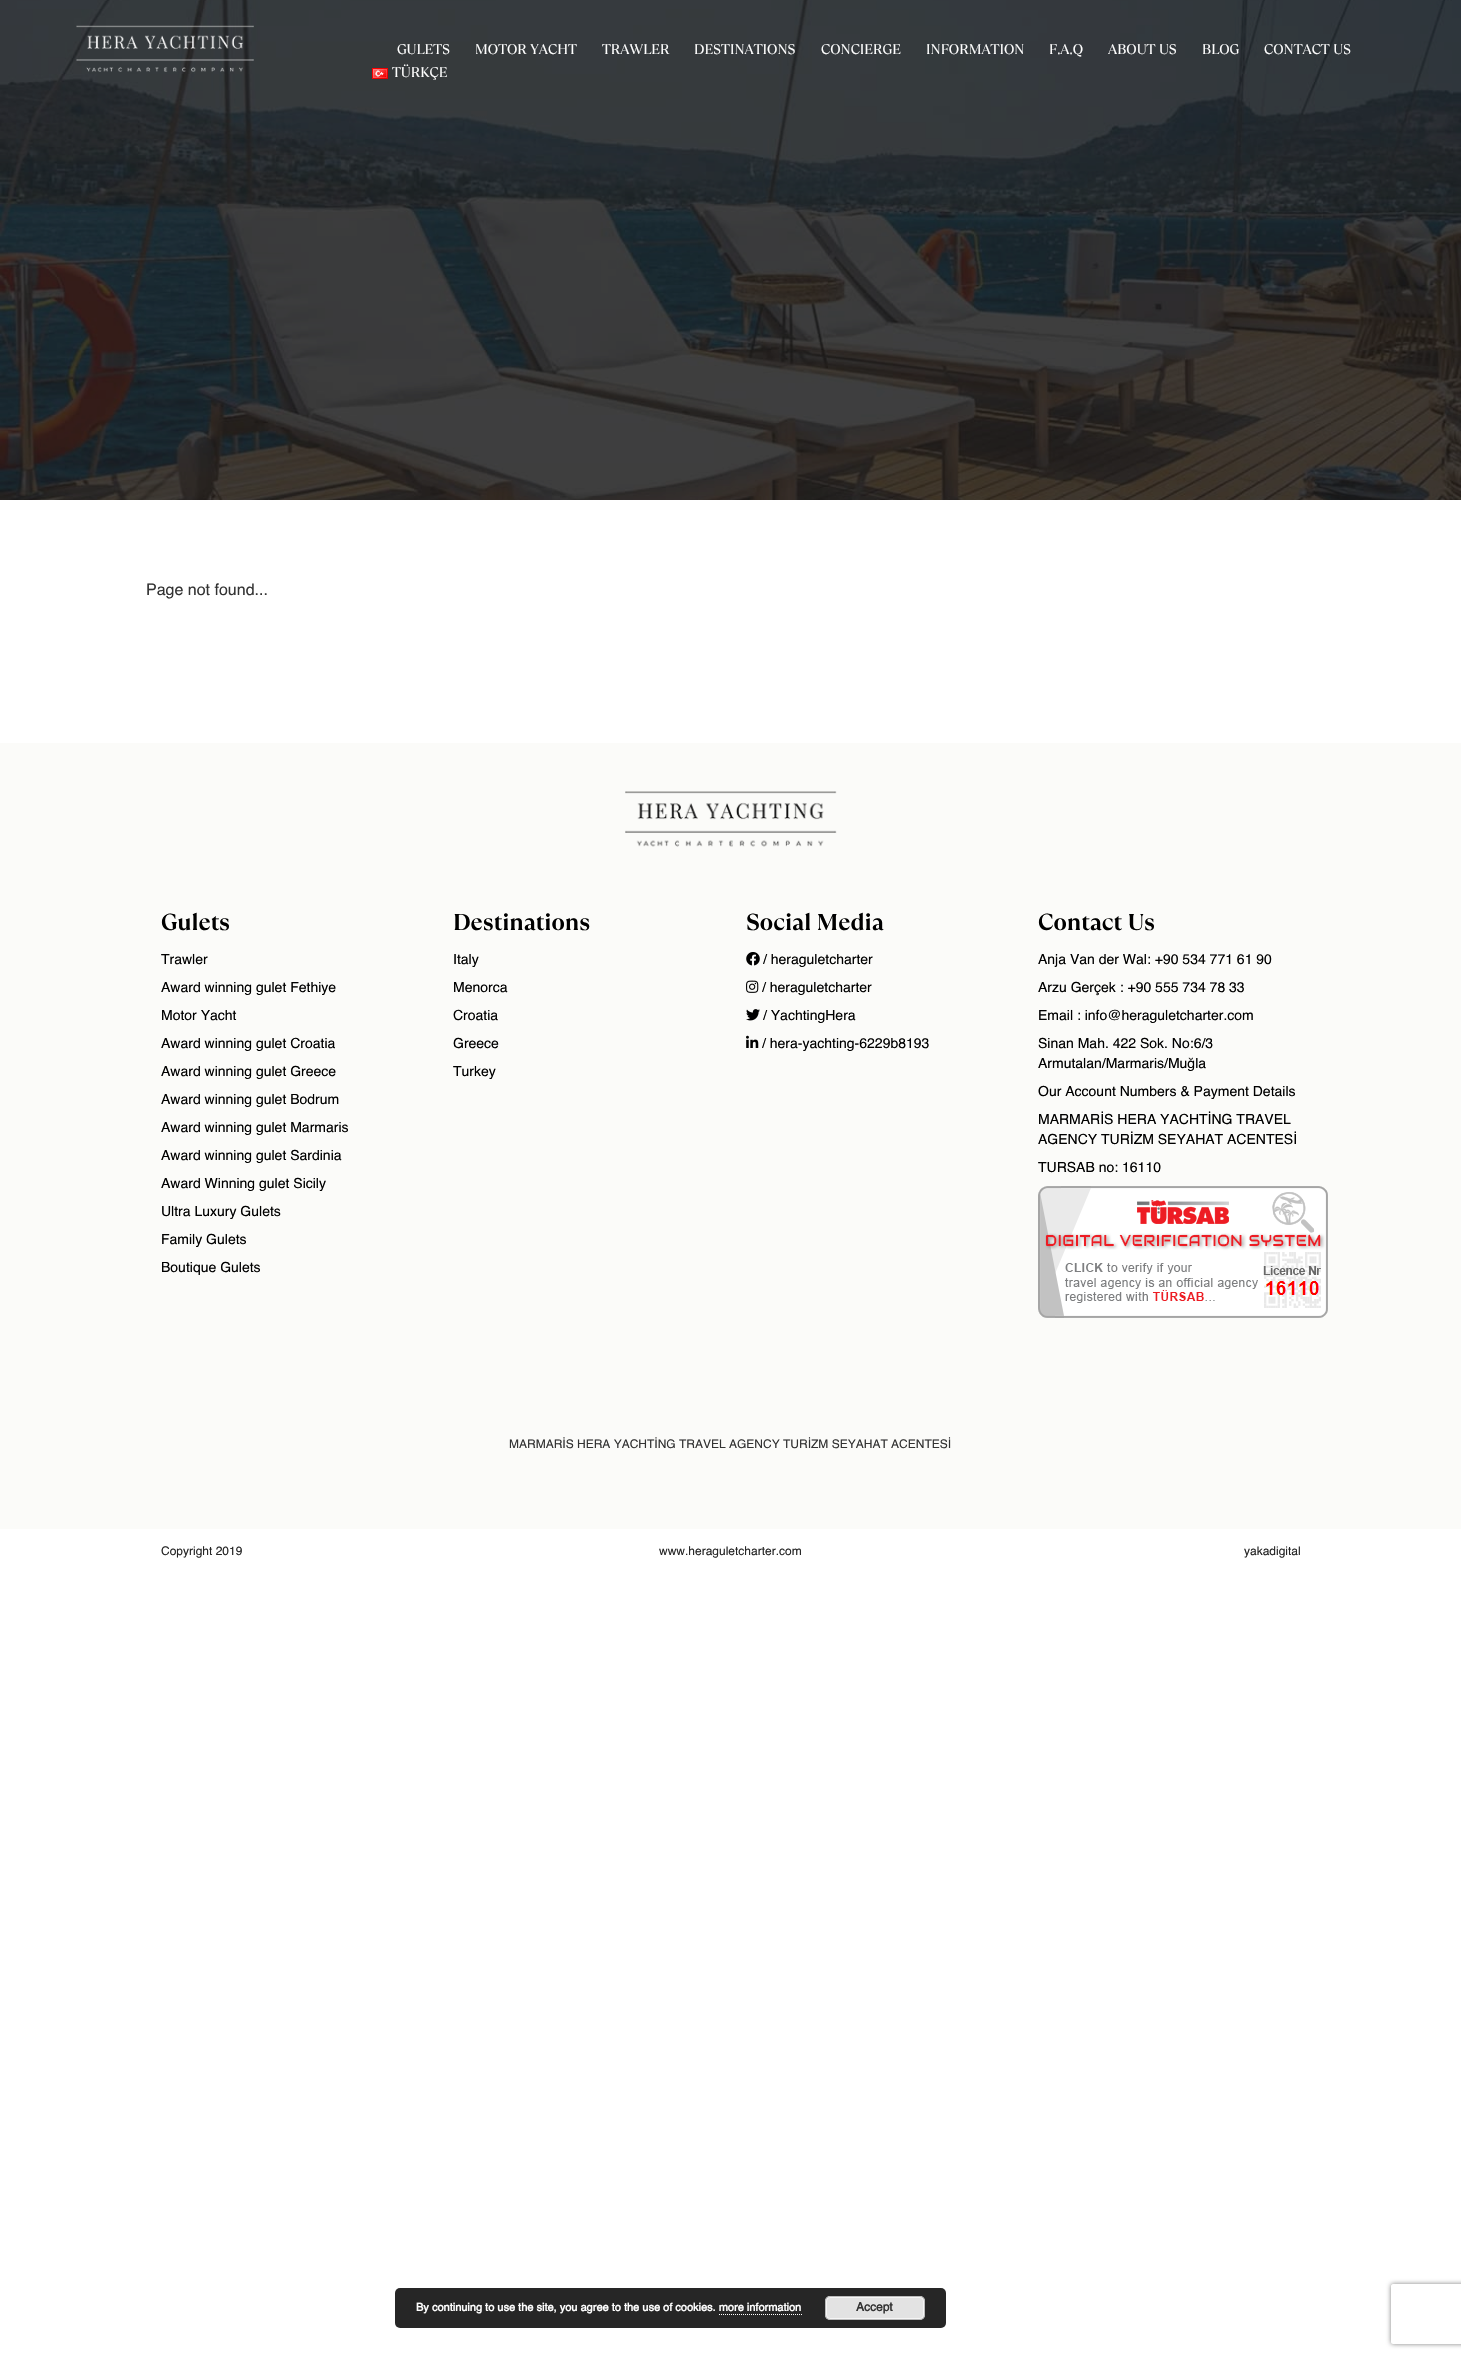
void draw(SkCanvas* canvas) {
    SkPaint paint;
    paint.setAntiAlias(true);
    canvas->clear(0xFFFFFFFF);
    canvas->drawImageRect(SkImages::DeferredFromEncodedData(SkData::MakeFromFileName("img1.png")), SkRect::MakeXYWH(0, 0, 1461, 500), SkSamplingOptions());
    canvas->drawImageRect(SkImages::DeferredFromEncodedData(SkData::MakeFromFileName("img2.png")), SkRect::MakeXYWH(76, 25, 178, 47), SkSamplingOptions());
    SkFont font1(fontMgr->matchFamilyStyle("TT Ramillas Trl", SkFontStyle::Normal()), 14);
    font1.setSubpixel(true);
    paint.setColor(0xFFFFFFFF);
    canvas->drawString("GULETS", 397, 54, font1, paint);
    canvas->drawString("MOTOR YACHT", 475, 54, font1, paint);
    canvas->drawString("TRAWLER", 602, 54, font1, paint);
    canvas->drawString("DESTINATIONS", 694, 54, font1, paint);
    canvas->drawString("CONCIERGE", 821, 54, font1, paint);
    canvas->drawString("INFORMATION", 926, 54, font1, paint);
    canvas->drawString("F.A.Q", 1049, 54, font1, paint);
    canvas->drawString("ABOUT US", 1108, 54, font1, paint);
    canvas->drawString("BLOG", 1202, 54, font1, paint);
    canvas->drawString("CONTACT US", 1264, 54, font1, paint);
    canvas->drawImageRect(SkImages::DeferredFromEncodedData(SkData::MakeFromFileName("img3.png")), SkRect::MakeXYWH(372, 68, 16, 11), SkSamplingOptions());
    canvas->drawString("TÜRKÇE", 392, 77, font1, paint);
    SkFont font2(fontMgr->matchFamilyStyle("Helvetica", SkFontStyle::Normal()), 16);
    font2.setSubpixel(true);
    paint.setColor(0xFF333333);
    canvas->drawString("Page not found...", 146, 595, font2, paint);
    paint.setColor(0xFFFBFBF9);
    canvas->drawRect(SkRect::MakeXYWH(0, 743, 1461, 786), paint);
    canvas->drawImageRect(SkImages::DeferredFromEncodedData(SkData::MakeFromFileName("img4.png")), SkRect::MakeXYWH(625, 791, 212, 56), SkSamplingOptions());
    SkFont font3(fontMgr->matchFamilyStyle("TT Ramillas Trl", SkFontStyle::Bold()), 23);
    font3.setSubpixel(true);
    paint.setColor(0xFF000000);
    canvas->drawString("Gulets", 161, 930, font3, paint);
    SkFont font4(fontMgr->matchFamilyStyle("Helvetica", SkFontStyle::Normal()), 14);
    font4.setSubpixel(true);
    canvas->drawString("Trawler", 161, 964, font4, paint);
    canvas->drawString("Award winning gulet Fethiye", 161, 992, font4, paint);
    canvas->drawString("Motor Yacht", 161, 1020, font4, paint);
    canvas->drawString("Award winning gulet Croatia", 161, 1048, font4, paint);
    canvas->drawString("Award winning gulet Greece", 161, 1076, font4, paint);
    canvas->drawString("Award winning gulet Bodrum", 161, 1104, font4, paint);
    canvas->drawString("Award winning gulet Marmaris", 161, 1132, font4, paint);
    canvas->drawString("Award winning gulet Sardinia", 161, 1160, font4, paint);
    canvas->drawString("Award Winning gulet Sicily", 161, 1188, font4, paint);
    canvas->drawString("Ultra Luxury Gulets", 161, 1216, font4, paint);
    canvas->drawString("Family Gulets", 161, 1244, font4, paint);
    canvas->drawString("Boutique Gulets", 161, 1272, font4, paint);
    canvas->drawString("Destinations", 453, 930, font3, paint);
    canvas->drawString("Italy", 453, 964, font4, paint);
    canvas->drawString("Menorca", 453, 992, font4, paint);
    canvas->drawString("Croatia", 453, 1020, font4, paint);
    canvas->drawString("Greece", 453, 1048, font4, paint);
    canvas->drawString("Turkey", 453, 1076, font4, paint);
    canvas->drawString("Social Media", 746, 930, font3, paint);
    canvas->drawImageRect(SkImages::DeferredFromEncodedData(SkData::MakeFromFileName("img5.png")), SkRect::MakeXYWH(746, 952, 14, 14), SkSamplingOptions());
    canvas->drawString("/ heraguletcharter", 763, 964, font4, paint);
    canvas->drawImageRect(SkImages::DeferredFromEncodedData(SkData::MakeFromFileName("img6.png")), SkRect::MakeXYWH(746, 980, 13, 13), SkSamplingOptions());
    canvas->drawString("/ heraguletcharter", 762, 992, font4, paint);
    canvas->drawImageRect(SkImages::DeferredFromEncodedData(SkData::MakeFromFileName("img7.png")), SkRect::MakeXYWH(746, 1009, 14, 12), SkSamplingOptions());
    canvas->drawString("/ YachtingHera", 763, 1020, font4, paint);
    canvas->drawImageRect(SkImages::DeferredFromEncodedData(SkData::MakeFromFileName("img8.png")), SkRect::MakeXYWH(746, 1035, 13, 13), SkSamplingOptions());
    canvas->drawString("/ hera-yachting-6229b8193", 762, 1048, font4, paint);
    canvas->drawString("Contact Us", 1038, 930, font3, paint);
    canvas->drawString("Anja Van der Wal: +90 534 771 61 90", 1038, 964, font4, paint);
    canvas->drawString("Arzu Gerçek : +90 555 734 78 33", 1038, 992, font4, paint);
    canvas->drawString("Email : info@heraguletcharter.com", 1038, 1020, font4, paint);
    canvas->drawString("Sinan Mah. 422 Sok. No:6/3", 1038, 1048, font4, paint);
    canvas->drawString("Armutalan/Marmaris/Muğla", 1038, 1068, font4, paint);
    canvas->drawString("Our Account Numbers & Payment Details", 1038, 1096, font4, paint);
    canvas->drawString("MARMARİS HERA YACHTİNG TRAVEL", 1038, 1124, font4, paint);
    canvas->drawString("AGENCY TURİZM SEYAHAT ACENTESİ", 1038, 1144, font4, paint);
    canvas->drawString("TURSAB no: 16110", 1038, 1172, font4, paint);
    canvas->drawImageRect(SkImages::DeferredFromEncodedData(SkData::MakeFromFileName("img9.png")), SkRect::MakeXYWH(1038, 1186, 290, 132), SkSamplingOptions());
    SkFont font5(fontMgr->matchFamilyStyle("Helvetica", SkFontStyle::Normal()), 12);
    font5.setSubpixel(true);
    paint.setColor(0xFF333333);
    canvas->drawString("MARMARİS HERA YACHTİNG TRAVEL AGENCY TURİZM SEYAHAT ACENTESİ", 509, 1448, font5, paint);
    paint.setColor(0xFF252525);
    canvas->drawString("Copyright 2019", 161, 1555, font5, paint);
    canvas->drawString("www.heraguletcharter.com", 659, 1555, font5, paint);
    canvas->drawString("yakadigital", 1244, 1555, font5, paint);
    paint.setColor(0xFF262626);
    canvas->drawRoundRect(SkRect::MakeXYWH(395, 2288, 551, 40), 5, 5, paint);
    SkFont font6(fontMgr->matchFamilyStyle("Helvetica", SkFontStyle::Bold()), 11);
    font6.setSubpixel(true);
    paint.setColor(0xFFFFFFFF);
    canvas->drawString("By continuing to use the site, you agree to the use of cookies. more information", 416, 2311, font6, paint);
    paint.setColor(0xFFE3E3E3);
    canvas->drawRoundRect(SkRect::MakeXYWH(825, 2296, 100, 24), 5, 5, paint);
    paint.setStyle(SkPaint::kStroke_Style);
    paint.setStrokeWidth(1);
    paint.setColor(0xFFF6F6F6);
    canvas->drawRoundRect(SkRect::MakeXYWH(826.5f, 2297.5f, 97, 21), 3.5f, 3.5f, paint);
    paint.setColor(0xFFBBBBBB);
    canvas->drawRoundRect(SkRect::MakeXYWH(825.5f, 2296.5f, 99, 23), 4.5f, 4.5f, paint);
    SkFont font7(fontMgr->matchFamilyStyle("Helvetica", SkFontStyle::Bold()), 12);
    font7.setSubpixel(true);
    paint.setStyle(SkPaint::kFill_Style);
    paint.setColor(0xFF333333);
    canvas->drawString("Accept", 856, 2311, font7, paint);
    paint.setStyle(SkPaint::kStroke_Style);
    paint.setColor(0xFFFFFFFF);
    paint.setPathEffect(SkDashPathEffect::Make({{1, 1}}, 0));
    canvas->drawPath(SkPathBuilder().moveTo(719, 2314.5f).lineTo(802, 2314.5f).detach(), paint);
    paint.setPathEffect(nullptr);
    canvas->save();
    canvas->clipPath(SkPathBuilder(SkPathFillType::kEvenOdd).moveTo(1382, 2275).lineTo(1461, 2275).lineTo(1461, 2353).lineTo(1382, 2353).close().moveTo(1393, 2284).lineTo(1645, 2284).cubicTo(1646, 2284, 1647, 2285, 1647, 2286).lineTo(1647, 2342).cubicTo(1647, 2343, 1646, 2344, 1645, 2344).lineTo(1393, 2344).cubicTo(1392, 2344, 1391, 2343, 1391, 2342).lineTo(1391, 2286).cubicTo(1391, 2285, 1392, 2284, 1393, 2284).close().detach(), true);
    paint.setStyle(SkPaint::kFill_Style);
    paint.setColor(0xFF808080);
    paint.setMaskFilter(SkMaskFilter::MakeBlur(kNormal_SkBlurStyle, 2.5f));
    canvas->drawRoundRect(SkRect::MakeXYWH(1391, 2284, 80, 60), 2, 2, paint);
    paint.setMaskFilter(nullptr);
    canvas->restore();
}
